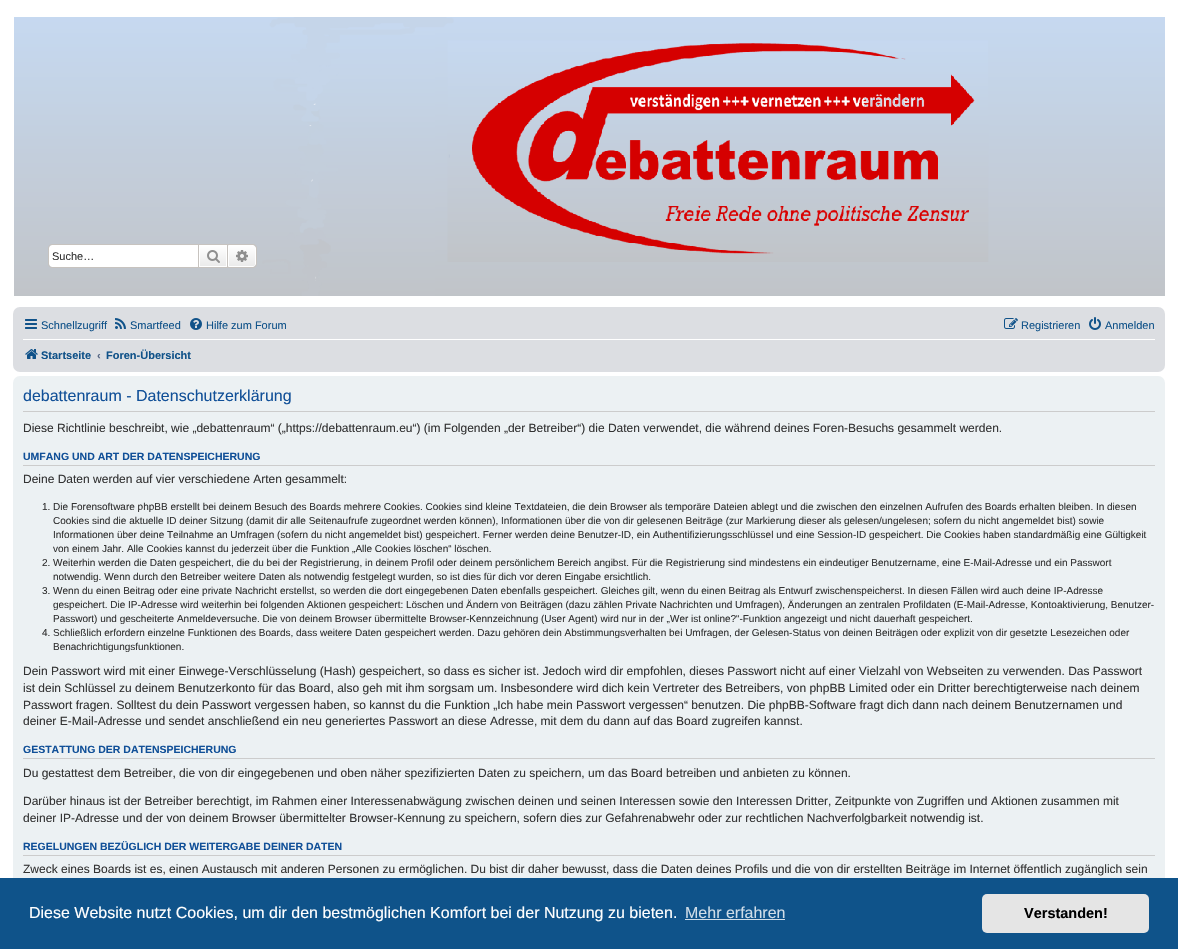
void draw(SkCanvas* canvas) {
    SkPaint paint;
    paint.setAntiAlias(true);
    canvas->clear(0xFFFFFFFF);
    canvas->drawImageRect(SkImages::DeferredFromEncodedData(SkData::MakeFromFileName("img1.png")), SkRect::MakeXYWH(14, 17, 1151, 279), SkSamplingOptions());
    paint.setColor(0xFFFFFFFF);
    canvas->drawPath(SkPathBuilder().moveTo(52, 245).lineTo(198, 245).lineTo(198, 267).lineTo(52, 267).cubicTo(50.5f, 267, 49, 265.5f, 49, 264).lineTo(49, 248).cubicTo(49, 246.5f, 50.5f, 245, 52, 245).close().detach(), paint);
    paint.setColor(0xFFC7C3BF);
    canvas->drawPath(SkPathBuilder(SkPathFillType::kEvenOdd).moveTo(52, 244).lineTo(198, 244).lineTo(198, 268).lineTo(52, 268).cubicTo(50, 268, 48, 266, 48, 264).lineTo(48, 248).cubicTo(48, 246, 50, 244, 52, 244).close().moveTo(52, 245).lineTo(198, 245).lineTo(198, 267).lineTo(52, 267).cubicTo(50, 267, 49, 266, 49, 264).lineTo(49, 248).cubicTo(49, 246, 50, 245, 52, 245).close().detach(), paint);
    SkFont font1(fontMgr->matchFamilyStyle("Liberation Sans", SkFontStyle::Normal()), 11);
    font1.setSubpixel(true);
    paint.setColor(0xFF333333);
    canvas->drawString("Suche…", 52, 260, font1, paint);
    {
        const SkColor colors[] = {0xFFFFFFFF, 0xFFE9E9E9};
        const float stops[] = {0, 1};
        const SkPoint ends[] = {{213, 245}, {213, 267}};
        paint.setShader(SkGradientShader::MakeLinear(ends, colors, stops, 2, SkTileMode::kClamp));
        paint.setAlpha(255);
    }
    canvas->drawRect(SkRect::MakeXYWH(200, 246, 26, 20), paint);
    paint.setStyle(SkPaint::kStroke_Style);
    paint.setStrokeWidth(1);
    paint.setShader(nullptr);
    paint.setColor(0xFFFFFFFF);
    canvas->drawRect(SkRect::MakeXYWH(199.5f, 245.5f, 27, 21), paint);
    paint.setColor(0xFFC7C3BF);
    canvas->drawRect(SkRect::MakeXYWH(198.5f, 244.5f, 29, 23), paint);
    canvas->drawImageRect(SkImages::DeferredFromEncodedData(SkData::MakeFromFileName("img2.png")), SkRect::MakeXYWH(207, 250, 13, 13), SkSamplingOptions());
    paint.setStyle(SkPaint::kFill_Style);
    {
        const SkColor colors[] = {0xFFFFFFFF, 0xFFE9E9E9};
        const float stops[] = {0, 1};
        const SkPoint ends[] = {{242, 245}, {242, 267}};
        paint.setShader(SkGradientShader::MakeLinear(ends, colors, stops, 2, SkTileMode::kClamp));
        paint.setAlpha(255);
    }
    canvas->drawPath(SkPathBuilder().moveTo(228.5f, 245.5f).lineTo(253, 245.5f).cubicTo(254.5f, 245.5f, 255.5f, 246.5f, 255.5f, 248).lineTo(255.5f, 264).cubicTo(255.5f, 265.5f, 254.5f, 266.5f, 253, 266.5f).lineTo(228.5f, 266.5f).close().detach(), paint);
    paint.setStyle(SkPaint::kStroke_Style);
    paint.setShader(nullptr);
    paint.setColor(0xFFFFFFFF);
    canvas->drawPath(SkPathBuilder().moveTo(228.5f, 245.5f).lineTo(253, 245.5f).cubicTo(254.5f, 245.5f, 255.5f, 246.5f, 255.5f, 248).lineTo(255.5f, 264).cubicTo(255.5f, 265.5f, 254.5f, 266.5f, 253, 266.5f).lineTo(228.5f, 266.5f).close().detach(), paint);
    paint.setStyle(SkPaint::kFill_Style);
    paint.setColor(0xFFC7C3BF);
    canvas->drawPath(SkPathBuilder(SkPathFillType::kEvenOdd).moveTo(228, 244).lineTo(253, 244).cubicTo(255, 244, 257, 246, 257, 248).lineTo(257, 264).cubicTo(257, 266, 255, 268, 253, 268).lineTo(228, 268).close().moveTo(228, 245).lineTo(253, 245).cubicTo(254.5f, 245, 256, 246.5f, 256, 248).lineTo(256, 264).cubicTo(256, 265.5f, 254.5f, 267, 253, 267).lineTo(228, 267).close().detach(), paint);
    canvas->drawImageRect(SkImages::DeferredFromEncodedData(SkData::MakeFromFileName("img3.png")), SkRect::MakeXYWH(236, 250, 12, 12), SkSamplingOptions());
    paint.setColor(0xFFDCDEE2);
    canvas->drawRoundRect(SkRect::MakeXYWH(13, 307, 1152, 65), 7, 7, paint);
    canvas->drawImageRect(SkImages::DeferredFromEncodedData(SkData::MakeFromFileName("img4.png")), SkRect::MakeXYWH(25, 319, 12, 10), SkSamplingOptions());
    paint.setColor(0xFF105289);
    canvas->drawString("Schnellzugriff", 41, 329, font1, paint);
    canvas->drawImageRect(SkImages::DeferredFromEncodedData(SkData::MakeFromFileName("img5.png")), SkRect::MakeXYWH(115, 318, 11, 11), SkSamplingOptions());
    canvas->drawString("Smartfeed", 130, 329, font1, paint);
    canvas->drawImageRect(SkImages::DeferredFromEncodedData(SkData::MakeFromFileName("img6.png")), SkRect::MakeXYWH(190, 318, 12, 12), SkSamplingOptions());
    canvas->drawString("Hilfe zum Forum", 206, 329, font1, paint);
    canvas->drawImageRect(SkImages::DeferredFromEncodedData(SkData::MakeFromFileName("img7.png")), SkRect::MakeXYWH(1004, 318, 14, 11), SkSamplingOptions());
    canvas->drawString("Registrieren", 1021, 329, font1, paint);
    canvas->drawImageRect(SkImages::DeferredFromEncodedData(SkData::MakeFromFileName("img8.png")), SkRect::MakeXYWH(1089, 317, 12, 13), SkSamplingOptions());
    canvas->drawString("Anmelden", 1105, 329, font1, paint);
    paint.setColor(0xFFFFFFFF);
    canvas->drawRect(SkRect::MakeXYWH(23, 339, 1132, 1), paint);
    canvas->drawImageRect(SkImages::DeferredFromEncodedData(SkData::MakeFromFileName("img9.png")), SkRect::MakeXYWH(25, 349, 13, 10), SkSamplingOptions());
    SkFont font2(fontMgr->matchFamilyStyle("Liberation Sans", SkFontStyle::Bold()), 11);
    font2.setSubpixel(true);
    paint.setColor(0xFF105289);
    canvas->drawString("Startseite", 41, 359, font2, paint);
    paint.setColor(0xFF536482);
    canvas->drawString("‹", 97, 359, font2, paint);
    paint.setColor(0xFF105289);
    canvas->drawString("Foren-Übersicht", 106, 359, font2, paint);
    paint.setColor(0xFFECF1F3);
    canvas->drawRoundRect(SkRect::MakeXYWH(13, 376, 1152, 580), 7, 7, paint);
    paint.setColor(0xFFCCCCCC);
    canvas->drawRect(SkRect::MakeXYWH(23, 411, 1132, 1), paint);
    SkFont font3(fontMgr->matchFamilyStyle("Liberation Sans", SkFontStyle::Normal()), 16);
    font3.setSubpixel(true);
    paint.setColor(0xFF115098);
    canvas->drawString("debattenraum - Datenschutzerklärung", 23, 401, font3, paint);
    SkFont font4(fontMgr->matchFamilyStyle("Liberation Sans", SkFontStyle::Normal()), 12);
    font4.setSubpixel(true);
    paint.setColor(0xFF333333);
    canvas->drawString("Diese Richtlinie beschreibt, wie „debattenraum“ („https://debattenraum.eu“) (im Folgenden „der Betreiber“) die Daten verwendet, die während deines Foren-Besuchs gesammelt werden.", 23, 432, font4, paint);
    paint.setColor(0xFFCCCCCC);
    canvas->drawRect(SkRect::MakeXYWH(23, 465, 1132, 1), paint);
    SkFont font5(fontMgr->matchFamilyStyle("Liberation Sans", SkFontStyle::Bold()), 10.5f);
    font5.setSubpixel(true);
    paint.setColor(0xFF115098);
    canvas->drawString("UMFANG UND ART DER DATENSPEICHERUNG", 23, 460, font5, paint);
    paint.setColor(0xFF333333);
    canvas->drawString("Deine Daten werden auf vier verschiedene Arten gesammelt:", 23, 483, font4, paint);
    SkFont font6(fontMgr->matchFamilyStyle("Liberation Sans", SkFontStyle::Normal()), 10);
    font6.setSubpixel(true);
    canvas->drawString("1. Die Forensoftware phpBB erstellt bei deinem Besuch des Boards mehrere Cookies. Cookies sind kleine Textdateien, die dein Browser als temporäre Dateien ablegt und die zwischen den einzelnen Aufrufen des Boards erhalten bleiben. In diesen", 42, 510, font6, paint);
    canvas->drawString("Cookies sind die aktuelle ID deiner Sitzung (damit dir alle Seitenaufrufe zugeordnet werden können), Informationen über die von dir gelesenen Beiträge (zur Markierung dieser als gelesen/ungelesen; sofern du nicht angemeldet bist) sowie", 53, 524, font6, paint);
    canvas->drawString("Informationen über deine Teilnahme an Umfragen (sofern du nicht angemeldet bist) gespeichert. Ferner werden deine Benutzer-ID, ein Authentifizierungsschlüssel und eine Session-ID gespeichert. Die Cookies haben standardmäßig eine Gültigkeit", 53, 538, font6, paint);
    canvas->drawString("von einem Jahr. Alle Cookies kannst du jederzeit über die Funktion „Alle Cookies löschen“ löschen.", 53, 552, font6, paint);
    canvas->drawString("2. Weiterhin werden die Daten gespeichert, die du bei der Registrierung, in deinem Profil oder deinem persönlichem Bereich angibst. Für die Registrierung sind mindestens ein eindeutiger Benutzername, eine E-Mail-Adresse und ein Passwort", 42, 566, font6, paint);
    canvas->drawString("notwendig. Wenn durch den Betreiber weitere Daten als notwendig festgelegt wurden, so ist dies für dich vor deren Eingabe ersichtlich.", 53, 580, font6, paint);
    canvas->drawString("3. Wenn du einen Beitrag oder eine private Nachricht erstellst, so werden die dort eingegebenen Daten ebenfalls gespeichert. Gleiches gilt, wenn du einen Beitrag als Entwurf zwischenspeicherst. In diesen Fällen wird auch deine IP-Adresse", 42, 594, font6, paint);
    canvas->drawString("gespeichert. Die IP-Adresse wird weiterhin bei folgenden Aktionen gespeichert: Löschen und Ändern von Beiträgen (dazu zählen Private Nachrichten und Umfragen), Änderungen an zentralen Profildaten (E-Mail-Adresse, Kontoaktivierung, Benutzer-", 53, 608, font6, paint);
    canvas->drawString("Passwort) und gescheiterte Anmeldeversuche. Die von deinem Browser übermittelte Browser-Kennzeichnung (User Agent) wird nur in der „Wer ist online?“-Funktion angezeigt und nicht dauerhaft gespeichert.", 53, 622, font6, paint);
    canvas->drawString("4. Schließlich erfordern einzelne Funktionen des Boards, dass weitere Daten gespeichert werden. Dazu gehören dein Abstimmungsverhalten bei Umfragen, der Gelesen-Status von deinen Beiträgen oder explizit von dir gesetzte Lesezeichen oder", 42, 636, font6, paint);
    canvas->drawString("Benachrichtigungsfunktionen.", 53, 650, font6, paint);
    canvas->drawString("Dein Passwort wird mit einer Einwege-Verschlüsselung (Hash) gespeichert, so dass es sicher ist. Jedoch wird dir empfohlen, dieses Passwort nicht auf einer Vielzahl von Webseiten zu verwenden. Das Passwort", 23, 675, font4, paint);
    canvas->drawString("ist dein Schlüssel zu deinem Benutzerkonto für das Board, also geh mit ihm sorgsam um. Insbesondere wird dich kein Vertreter des Betreibers, von phpBB Limited oder ein Dritter berechtigterweise nach deinem", 23, 692, font4, paint);
    canvas->drawString("Passwort fragen. Solltest du dein Passwort vergessen haben, so kannst du die Funktion „Ich habe mein Passwort vergessen“ benutzen. Die phpBB-Software fragt dich dann nach deinem Benutzernamen und", 23, 709, font4, paint);
    canvas->drawString("deiner E-Mail-Adresse und sendet anschließend ein neu generiertes Passwort an diese Adresse, mit dem du dann auf das Board zugreifen kannst.", 23, 725, font4, paint);
    paint.setColor(0xFFCCCCCC);
    canvas->drawRect(SkRect::MakeXYWH(23, 758, 1132, 1), paint);
    paint.setColor(0xFF115098);
    canvas->drawString("GESTATTUNG DER DATENSPEICHERUNG", 23, 753, font5, paint);
    paint.setColor(0xFF333333);
    canvas->drawString("Du gestattest dem Betreiber, die von dir eingegebenen und oben näher spezifizierten Daten zu speichern, um das Board betreiben und anbieten zu können.", 23, 777, font4, paint);
    canvas->drawString("Darüber hinaus ist der Betreiber berechtigt, im Rahmen einer Interessenabwägung zwischen deinen und seinen Interessen sowie den Interessen Dritter, Zeitpunkte von Zugriffen und Aktionen zusammen mit", 23, 805, font4, paint);
    canvas->drawString("deiner IP-Adresse und der von deinem Browser übermittelter Browser-Kennung zu speichern, sofern dies zur Gefahrenabwehr oder zur rechtlichen Nachverfolgbarkeit notwendig ist.", 23, 822, font4, paint);
    paint.setColor(0xFFCCCCCC);
    canvas->drawRect(SkRect::MakeXYWH(23, 855, 1132, 1), paint);
    paint.setColor(0xFF115098);
    canvas->drawString("REGELUNGEN BEZÜGLICH DER WEITERGABE DEINER DATEN", 23, 850, font5, paint);
    paint.setColor(0xFF333333);
    canvas->drawString("Zweck eines Boards ist es, einen Austausch mit anderen Personen zu ermöglichen. Du bist dir daher bewusst, dass die Daten deines Profils und die von dir erstellten Beiträge im Internet öffentlich zugänglich sein", 23, 873, font4, paint);
    paint.setColor(0xFF0F538A);
    canvas->drawRect(SkRect::MakeXYWH(0, 878, 1178, 71), paint);
    paint.setColor(0xFFFFFFFF);
    canvas->drawString("Diese Website nutzt Cookies, um dir den bestmöglichen Komfort bei der Nutzung zu bieten.", 29, 918, font3, paint);
    paint.setColor(0xFFCFDDE8);
    canvas->drawString("Mehr erfahren", 685, 918, font3, paint);
    canvas->drawRect(SkRect::MakeXYWH(685, 919, 100, 1), paint);
    paint.setColor(0xFFE5E5E5);
    canvas->drawRoundRect(SkRect::MakeXYWH(982, 894, 167, 39), 5, 5, paint);
    SkFont font7(fontMgr->matchFamilyStyle("Liberation Sans", SkFontStyle::Bold()), 14.5f);
    font7.setSubpixel(true);
    paint.setColor(0xFF000000);
    canvas->drawString("Verstanden!", 1024, 918, font7, paint);
}
